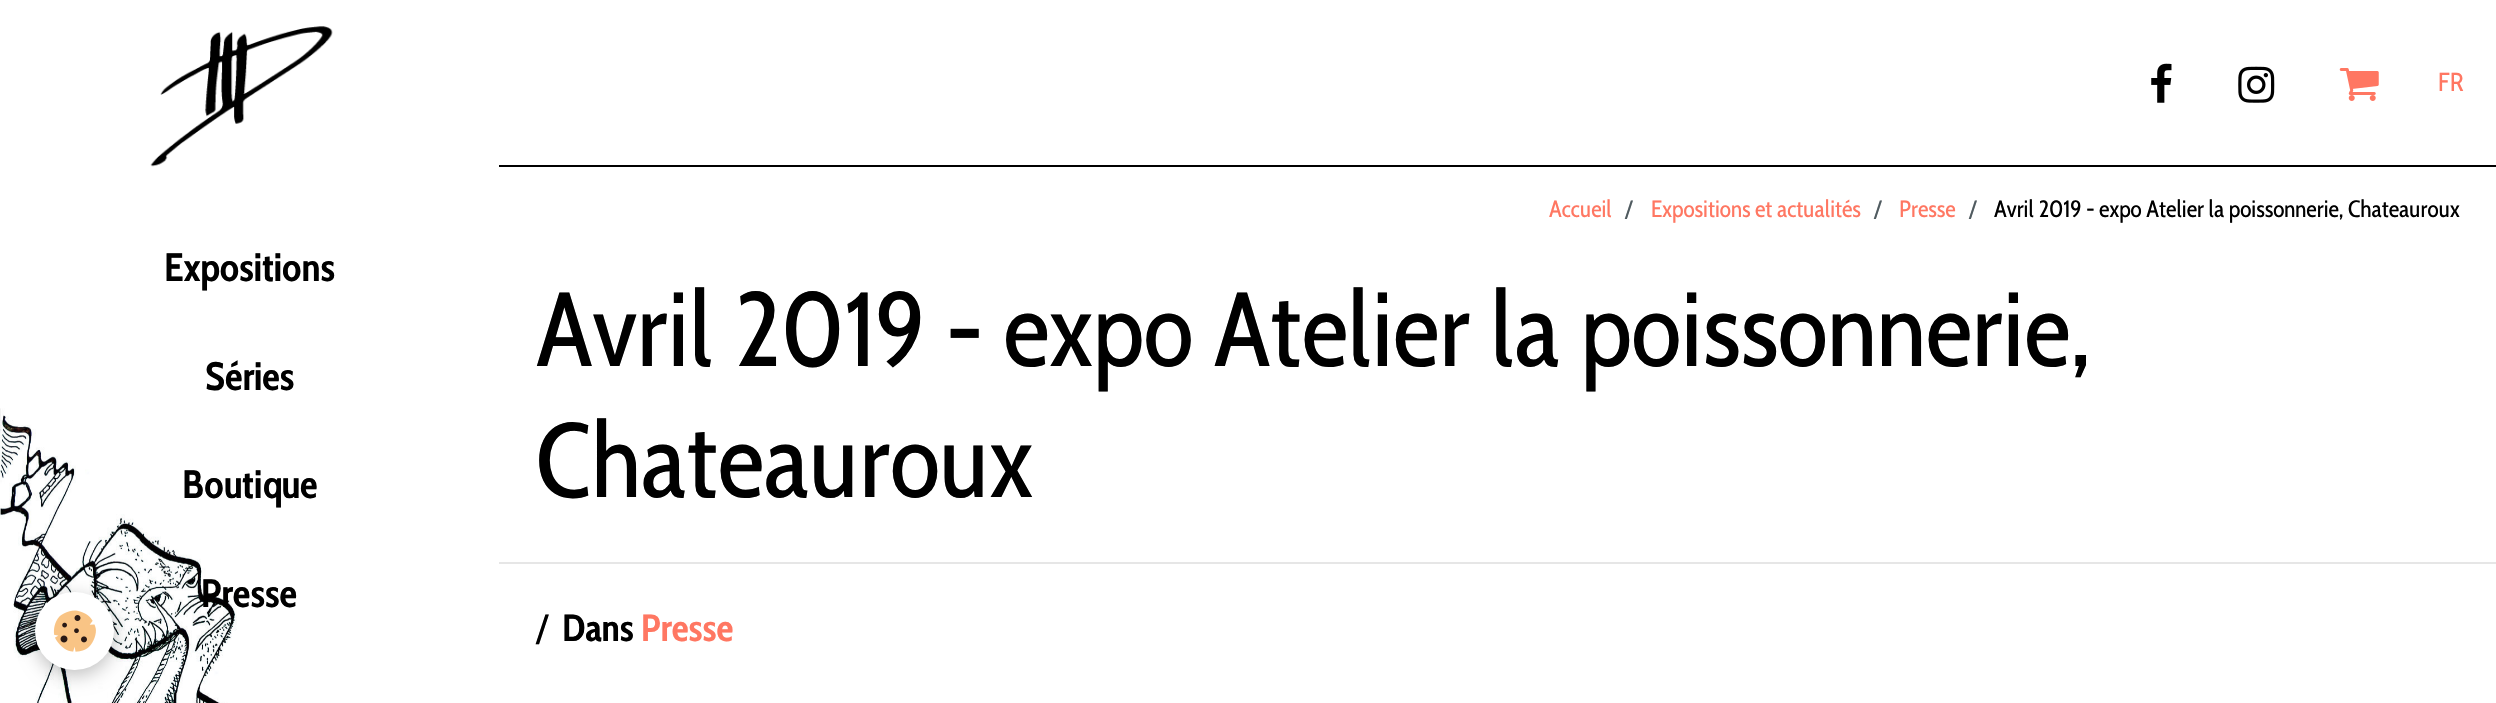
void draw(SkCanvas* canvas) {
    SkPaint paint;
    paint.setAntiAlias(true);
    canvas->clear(0xFFFFFFFF);
    canvas->drawImageRect(SkImages::DeferredFromEncodedData(SkData::MakeFromFileName("img1.png")), SkRect::MakeXYWH(150, 26, 183, 141), SkSamplingOptions());
    canvas->drawImageRect(SkImages::DeferredFromEncodedData(SkData::MakeFromFileName("img2.png")), SkRect::MakeXYWH(2151, 63, 21, 40), SkSamplingOptions());
    canvas->drawImageRect(SkImages::DeferredFromEncodedData(SkData::MakeFromFileName("img3.png")), SkRect::MakeXYWH(2238, 66, 37, 37), SkSamplingOptions());
    canvas->drawImageRect(SkImages::DeferredFromEncodedData(SkData::MakeFromFileName("img4.png")), SkRect::MakeXYWH(2339, 68, 40, 33), SkSamplingOptions());
    SkFont font1(fontMgr->matchFamilyStyle("Cabin Condensed", SkFontStyle::Normal()), 26);
    font1.setSubpixel(true);
    paint.setColor(0xFFFF7762);
    canvas->drawString("FR", 2438, 91, font1, paint);
    paint.setColor(0xFF000000);
    canvas->drawRect(SkRect::MakeXYWH(499, 165, 1997, 2), paint);
    canvas->drawImageRect(SkImages::DeferredFromEncodedData(SkData::MakeFromFileName("img6.png")), SkRect::MakeXYWH(0, 408, 237, 295), SkSamplingOptions());
    paint.setColor(0x3D000000);
    paint.setMaskFilter(SkMaskFilter::MakeBlur(kNormal_SkBlurStyle, 9));
    canvas->drawRoundRect(SkRect::MakeXYWH(35, 597, 79, 79), 39.5f, 39.5f, paint);
    paint.setMaskFilter(nullptr);
    paint.setColor(0xFFFFFFFF);
    canvas->drawRoundRect(SkRect::MakeXYWH(35, 592, 79, 78), 39, 39, paint);
    canvas->drawImageRect(SkImages::DeferredFromEncodedData(SkData::MakeFromFileName("img5.png")), SkRect::MakeXYWH(53, 610, 43, 42), SkSamplingOptions());
    SkFont font2(fontMgr->matchFamilyStyle("Cabin Condensed", SkFontStyle::Bold()), 39.5f);
    font2.setSubpixel(true);
    paint.setColor(0xFF000000);
    canvas->drawString("Expositions", 164, 281, font2, paint);
    canvas->drawString("Séries", 205, 390, font2, paint);
    canvas->drawString("Boutique", 182, 498, font2, paint);
    canvas->drawString("Presse", 201, 607, font2, paint);
    SkFont font3(fontMgr->matchFamilyStyle("Cabin Condensed", SkFontStyle::Normal()), 23.6f);
    font3.setSubpixel(true);
    paint.setColor(0xFFFF7762);
    canvas->drawString("Accueil", 1549, 217, font3, paint);
    paint.setColor(0xFF505B60);
    canvas->drawString("/", 1625, 217, font3, paint);
    paint.setColor(0xFFFF7762);
    canvas->drawString("Expositions et actualités", 1651, 217, font3, paint);
    paint.setColor(0xFF505B60);
    canvas->drawString("/", 1874, 217, font3, paint);
    paint.setColor(0xFFFF7762);
    canvas->drawString("Presse", 1899, 217, font3, paint);
    paint.setColor(0xFF505B60);
    canvas->drawString("/", 1969, 217, font3, paint);
    paint.setColor(0xFF000000);
    canvas->drawString("Avril 2019 - expo Atelier la poissonnerie, Chateauroux", 1994, 217, font3, paint);
    paint.setColor(0xFFE6E6E6);
    canvas->drawRect(SkRect::MakeXYWH(499, 562, 1997, 2), paint);
    SkFont font4(fontMgr->matchFamilyStyle("Cabin Condensed", SkFontStyle::Normal()), 105);
    font4.setSubpixel(true);
    paint.setColor(0xFF000000);
    canvas->drawString("Avril 2019 - expo Atelier la poissonnerie,", 536, 366, font4, paint);
    canvas->drawString("Chateauroux", 536, 497, font4, paint);
    SkFont font5(fontMgr->matchFamilyStyle("Cabin Condensed", SkFontStyle::Normal()), 38);
    font5.setSubpixel(true);
    canvas->drawString("/", 536, 641, font5, paint);
    SkFont font6(fontMgr->matchFamilyStyle("Cabin Condensed", SkFontStyle::Bold()), 38);
    font6.setSubpixel(true);
    canvas->drawString("Dans", 562, 641, font6, paint);
    paint.setColor(0xFFFF7762);
    canvas->drawString("Presse", 641, 641, font6, paint);
}
